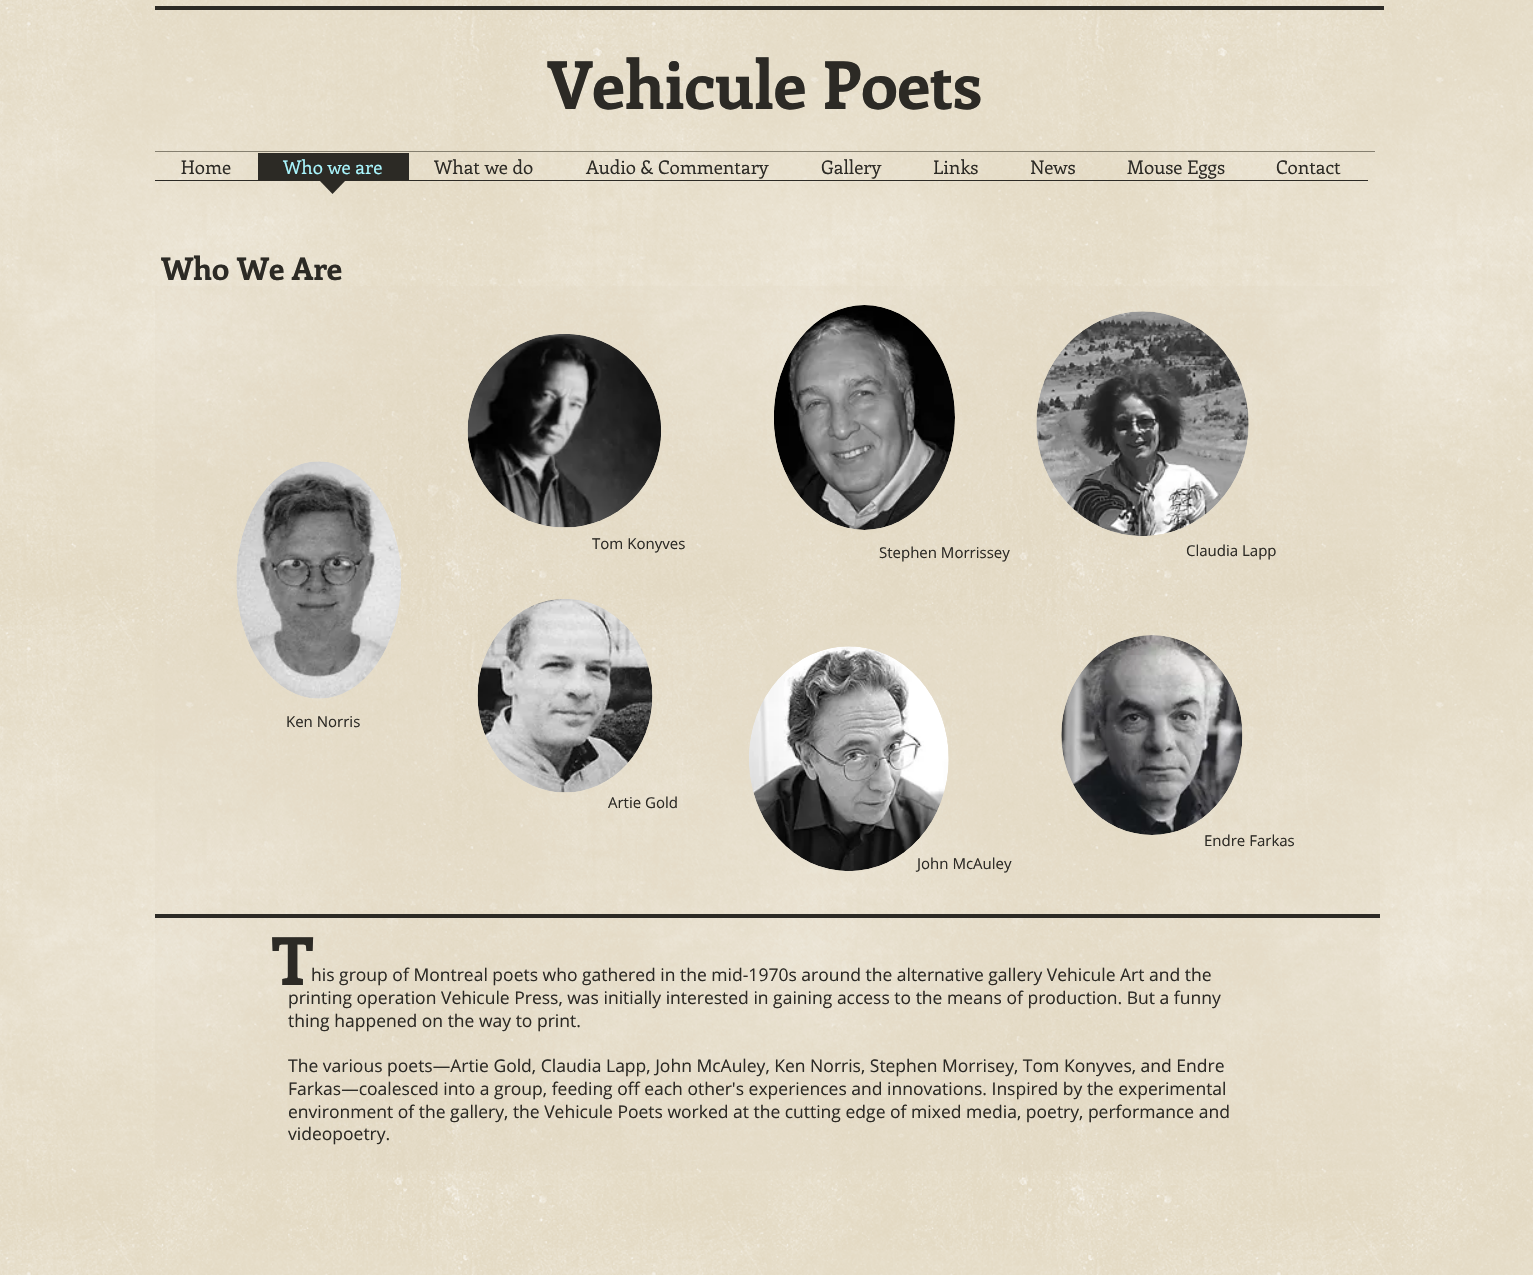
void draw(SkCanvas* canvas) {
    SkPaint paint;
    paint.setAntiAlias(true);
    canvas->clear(0xFFE3D9C2);
    canvas->drawImageRect(SkImages::DeferredFromEncodedData(SkData::MakeFromFileName("img1.png")), SkRect::MakeXYWH(0, 0, 1533, 1275), SkSamplingOptions());
    paint.setColor(0xFF2C2A25);
    canvas->drawRect(SkRect::MakeXYWH(155, 6, 1229, 4), paint);
    SkFont font1(fontMgr->matchFamilyStyle("Enriqueta", SkFontStyle::Bold()), 66.25f);
    font1.setSubpixel(true);
    canvas->drawString("Vehicule Poets", 547, 109, font1, paint);
    paint.setColor(0xFF857F6F);
    canvas->drawRect(SkRect::MakeXYWH(155, 151, 1220, 1), paint);
    SkFont font2(fontMgr->matchFamilyStyle("Enriqueta", SkFontStyle::Normal()), 18.75f);
    font2.setSubpixel(true);
    paint.setColor(0xFF2C2A25);
    canvas->drawString("Home", 181, 174, font2, paint);
    canvas->drawRect(SkRect::MakeXYWH(258, 153, 151, 27), paint);
    paint.setColor(0xFFAAF7FF);
    canvas->drawString("Who we are", 283, 174, font2, paint);
    paint.setColor(0xFF2C2A25);
    canvas->drawRect(SkRect::MakeXYWH(155, 180, 1213, 1), paint);
    canvas->drawPath(SkPathBuilder().moveTo(319, 180).lineTo(346, 180).lineTo(332.5f, 194).close().detach(), paint);
    canvas->drawString("What we do", 434, 174, font2, paint);
    canvas->drawString("Audio & Commentary", 586, 174, font2, paint);
    canvas->drawString("Gallery", 821, 174, font2, paint);
    canvas->drawString("Links", 933, 174, font2, paint);
    canvas->drawString("News", 1030, 174, font2, paint);
    canvas->drawString("Mouse Eggs", 1127, 174, font2, paint);
    canvas->drawString("Contact", 1276, 174, font2, paint);
    SkFont font3(fontMgr->matchFamilyStyle("Enriqueta", SkFontStyle::Bold()), 31.25f);
    font3.setSubpixel(true);
    canvas->drawString("Who We Are", 161, 280, font3, paint);
    paint.setColor(0x33E3D9C2);
    canvas->drawRect(SkRect::MakeXYWH(155, 286, 1225, 885), paint);
    canvas->drawImageRect(SkImages::DeferredFromEncodedData(SkData::MakeFromFileName("img2.png")), SkRect::MakeXYWH(467, 334, 194, 194), SkSamplingOptions());
    canvas->drawImageRect(SkImages::DeferredFromEncodedData(SkData::MakeFromFileName("img3.png")), SkRect::MakeXYWH(774, 305, 181, 225), SkSamplingOptions());
    canvas->drawImageRect(SkImages::DeferredFromEncodedData(SkData::MakeFromFileName("img4.png")), SkRect::MakeXYWH(1036, 311, 213, 225), SkSamplingOptions());
    canvas->drawImageRect(SkImages::DeferredFromEncodedData(SkData::MakeFromFileName("img5.png")), SkRect::MakeXYWH(236, 461, 165, 238), SkSamplingOptions());
    SkFont font4(fontMgr->matchFamilyStyle("Open Sans", SkFontStyle::Normal()), 15);
    font4.setSubpixel(true);
    paint.setColor(0xFF2C2A25);
    canvas->drawString("Tom Konyves", 592, 549, font4, paint);
    canvas->drawString("Stephen Morrissey", 879, 558, font4, paint);
    canvas->drawString("Claudia Lapp", 1186, 556, font4, paint);
    canvas->drawString("Ken Norris", 286, 727, font4, paint);
    canvas->drawImageRect(SkImages::DeferredFromEncodedData(SkData::MakeFromFileName("img6.png")), SkRect::MakeXYWH(477, 599, 176, 194), SkSamplingOptions());
    canvas->drawImageRect(SkImages::DeferredFromEncodedData(SkData::MakeFromFileName("img7.png")), SkRect::MakeXYWH(749, 646, 200, 225), SkSamplingOptions());
    canvas->drawImageRect(SkImages::DeferredFromEncodedData(SkData::MakeFromFileName("img8.png")), SkRect::MakeXYWH(1061, 635, 182, 200), SkSamplingOptions());
    canvas->drawString("Artie Gold", 608, 808, font4, paint);
    canvas->drawString("Endre Farkas", 1204, 846, font4, paint);
    canvas->drawString("John McAuley", 917, 869, font4, paint);
    canvas->drawRect(SkRect::MakeXYWH(155, 914, 1225, 4), paint);
    SkFont font5(fontMgr->matchFamilyStyle("Open Sans", SkFontStyle::Normal()), 17.5f);
    font5.setSubpixel(true);
    canvas->drawString("his group of Montreal poets who gathered in the mid-1970s around the alternative gallery Vehicule Art and the", 311, 981, font5, paint);
    canvas->drawString("T", 272, 985, font1, paint);
    canvas->drawString("printing operation Vehicule Press, was initially interested in gaining access to the means of production. But a funny", 288, 1004, font5, paint);
    canvas->drawString("thing happened on the way to print.", 288, 1027, font5, paint);
    canvas->drawString("The various poets—Artie Gold, Claudia Lapp, John McAuley, Ken Norris, Stephen Morrisey, Tom Konyves, and Endre", 288, 1072, font5, paint);
    canvas->drawString("Farkas—coalesced into a group, feeding off each other's experiences and innovations. Inspired by the experimental", 288, 1095, font5, paint);
    canvas->drawString("environment of the gallery, the Vehicule Poets worked at the cutting edge of mixed media, poetry, performance and", 288, 1118, font5, paint);
    canvas->drawString("videopoetry.", 288, 1140, font5, paint);
}
